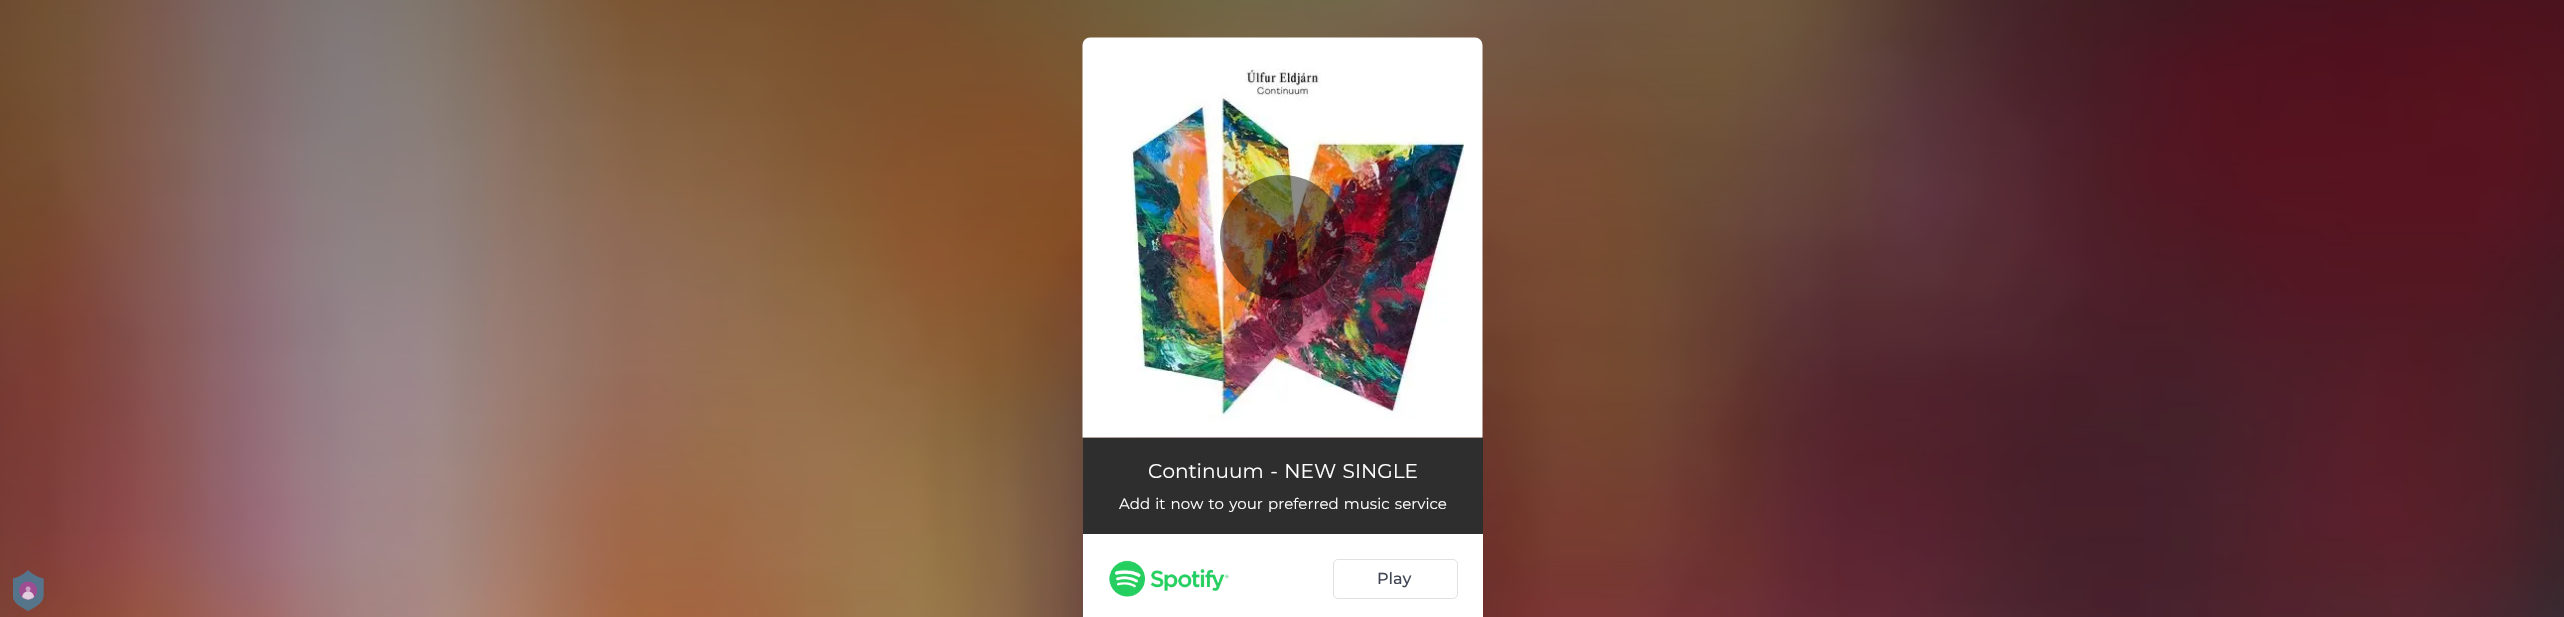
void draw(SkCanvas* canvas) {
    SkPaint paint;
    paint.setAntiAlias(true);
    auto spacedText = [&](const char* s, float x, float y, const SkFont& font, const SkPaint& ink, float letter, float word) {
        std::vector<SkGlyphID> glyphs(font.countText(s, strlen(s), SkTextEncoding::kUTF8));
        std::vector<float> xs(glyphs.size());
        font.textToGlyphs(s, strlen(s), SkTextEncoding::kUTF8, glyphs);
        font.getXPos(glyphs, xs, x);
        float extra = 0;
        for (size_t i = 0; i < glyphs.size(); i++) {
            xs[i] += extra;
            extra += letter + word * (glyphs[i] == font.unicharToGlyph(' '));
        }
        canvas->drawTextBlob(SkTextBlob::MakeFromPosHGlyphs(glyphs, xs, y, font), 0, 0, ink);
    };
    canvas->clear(0xFFFFFFFF);
    canvas->drawImageRect(SkImages::DeferredFromEncodedData(SkData::MakeFromFileName("img2.png")), SkRect::MakeXYWH(0, 0, 2564, 617), SkSamplingOptions());
    canvas->drawImageRect(SkImages::DeferredFromEncodedData(SkData::MakeFromFileName("img1.png")), SkRect::MakeXYWH(13, 570, 31, 41), SkSamplingOptions());
    canvas->drawImageRect(SkImages::DeferredFromEncodedData(SkData::MakeFromFileName("img3.png")), SkRect::MakeXYWH(1082, 37, 401, 401), SkSamplingOptions());
    paint.setColor(0x73000000);
    canvas->drawCircle(1282.5f, 237.5f, 62.5f, paint);
    paint.setColor(0xFF2E2E2E);
    canvas->drawRect(SkRect::MakeXYWH(1083, 438, 400, 96), paint);
    SkFont font1(fontMgr->matchFamilyStyle("Montserrat", SkFontStyle::Normal()), 20);
    font1.setSubpixel(true);
    paint.setColor(0xFFFFFFFF);
    spacedText("Continuum - NEW SINGLE", 1148, 478, font1, paint, 0, 1.25f);
    SkFont font2(fontMgr->matchFamilyStyle("Montserrat", SkFontStyle::Normal()), 15);
    font2.setSubpixel(true);
    spacedText("Add it now to your preferred music service", 1119, 509, font2, paint, 0, 1.25f);
    canvas->drawRect(SkRect::MakeXYWH(1083, 534, 400, 83), paint);
    canvas->drawImageRect(SkImages::DeferredFromEncodedData(SkData::MakeFromFileName("img4.png")), SkRect::MakeXYWH(1109, 560, 120, 37), SkSamplingOptions());
    paint.setStyle(SkPaint::kStroke_Style);
    paint.setStrokeWidth(1);
    paint.setColor(0xFFE1E1E4);
    canvas->drawRoundRect(SkRect::MakeXYWH(1333.5f, 559.5f, 124, 39), 4.5f, 4.5f, paint);
    SkFont font3(fontMgr->matchFamilyStyle("Montserrat", SkFontStyle(500, SkFontStyle::kNormal_Width, SkFontStyle::kUpright_Slant)), 16);
    font3.setSubpixel(true);
    paint.setStyle(SkPaint::kFill_Style);
    paint.setColor(0xFF414754);
    canvas->drawString("Play", 1377, 584, font3, paint);
}
